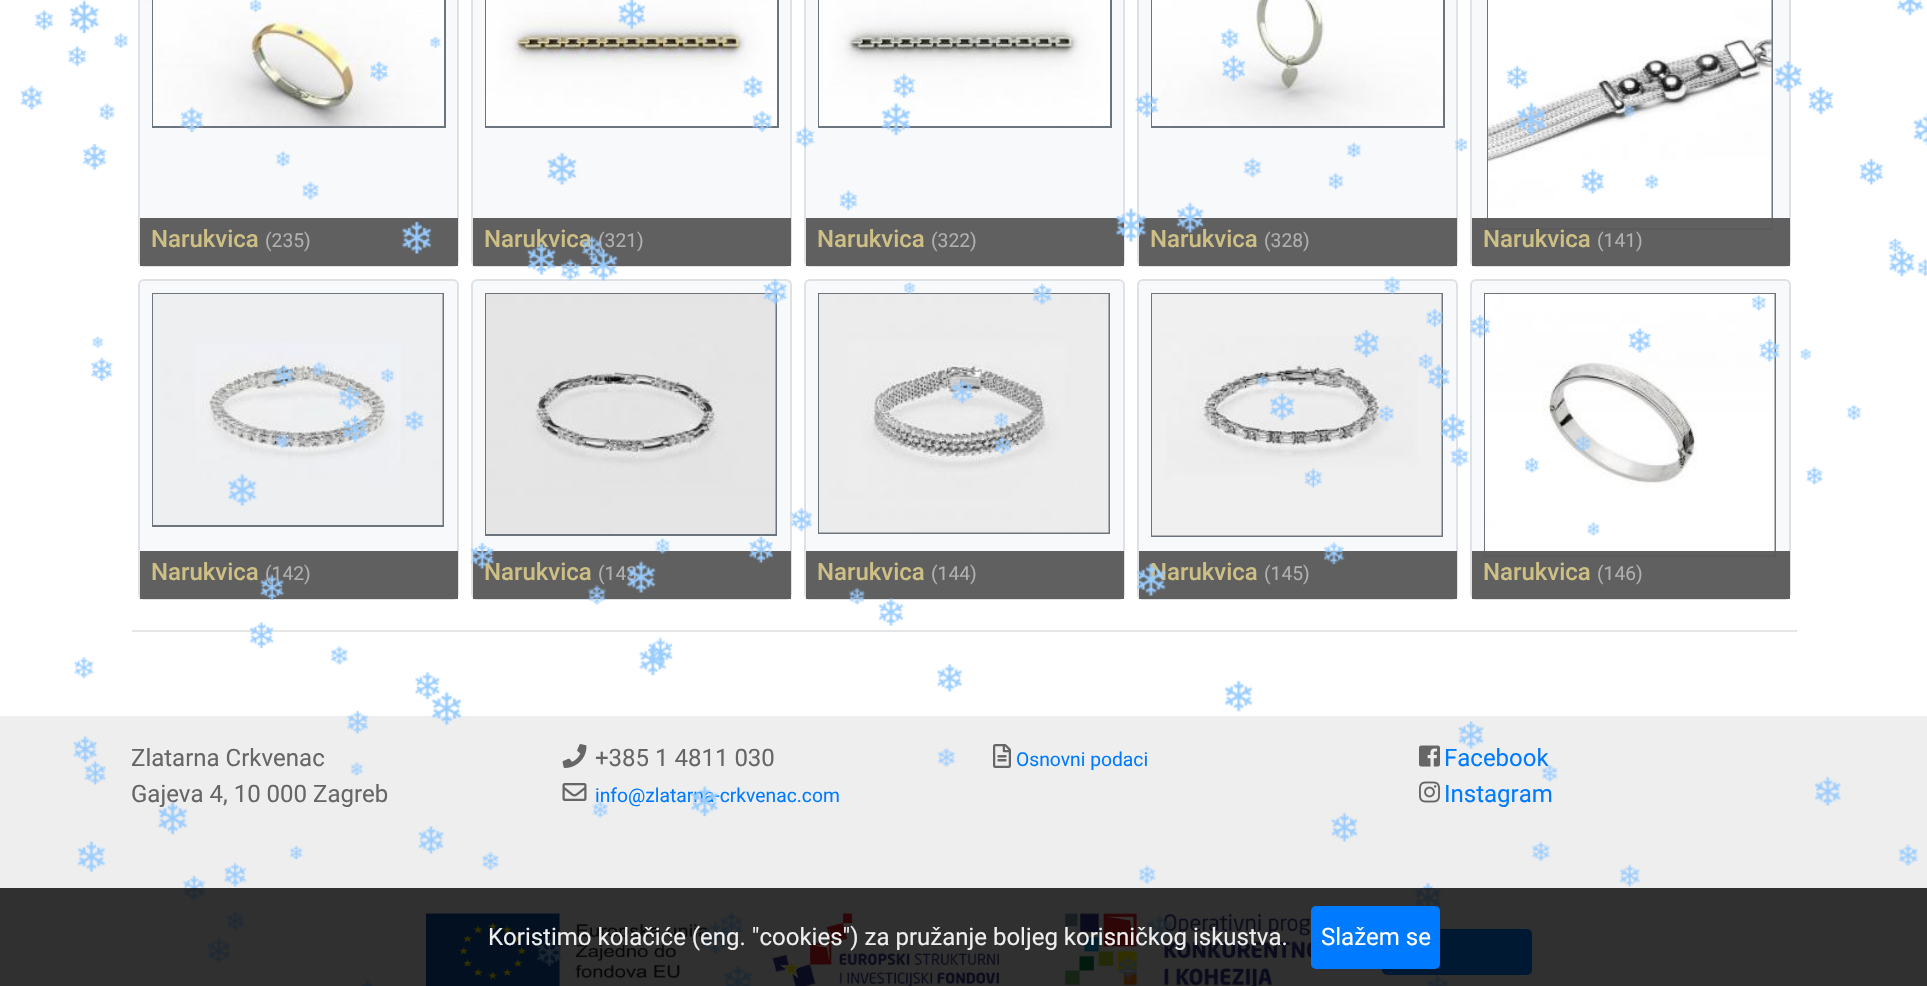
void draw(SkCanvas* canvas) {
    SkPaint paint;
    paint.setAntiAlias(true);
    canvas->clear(0xFFFFFFFF);
    paint.setColor(0xFFF8F9FA);
    canvas->drawRoundRect(SkRect::MakeXYWH(139, -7, 319, 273), 5, 5, paint);
    paint.setStyle(SkPaint::kStroke_Style);
    paint.setStrokeWidth(2);
    paint.setColor(0xFFDEE2E6);
    canvas->drawRoundRect(SkRect::MakeXYWH(139, -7, 319, 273), 5, 5, paint);
    paint.setColor(0xFF6C757D);
    canvas->drawRect(SkRect::MakeXYWH(153, -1, 292, 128), paint);
    canvas->drawImageRect(SkImages::DeferredFromEncodedData(SkData::MakeFromFileName("img2.png")), SkRect::MakeXYWH(153, 0, 291, 126), SkSamplingOptions());
    paint.setStyle(SkPaint::kFill_Style);
    paint.setColor(0xF55A5A5A);
    canvas->drawRect(SkRect::MakeXYWH(140, 218, 318, 48), paint);
    SkFont font1(fontMgr->matchFamilyStyle("Roboto", SkFontStyle(500, SkFontStyle::kNormal_Width, SkFontStyle::kUpright_Slant)), 24);
    font1.setSubpixel(true);
    paint.setColor(0xFFCEBF85);
    canvas->drawString("Narukvica", 151, 247, font1, paint);
    SkFont font2(fontMgr->matchFamilyStyle("Roboto", SkFontStyle::Normal()), 19.25f);
    font2.setSubpixel(true);
    paint.setColor(0xFFB0B0B0);
    canvas->drawString("(235)", 265, 247, font2, paint);
    paint.setColor(0xFFF8F9FA);
    canvas->drawRoundRect(SkRect::MakeXYWH(472, -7, 319, 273), 5, 5, paint);
    paint.setStyle(SkPaint::kStroke_Style);
    paint.setColor(0xFFDEE2E6);
    canvas->drawRoundRect(SkRect::MakeXYWH(472, -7, 319, 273), 5, 5, paint);
    paint.setColor(0xFF6C757D);
    canvas->drawRect(SkRect::MakeXYWH(486, -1, 292, 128), paint);
    canvas->drawImageRect(SkImages::DeferredFromEncodedData(SkData::MakeFromFileName("img3.png")), SkRect::MakeXYWH(486, 0, 291, 126), SkSamplingOptions());
    paint.setStyle(SkPaint::kFill_Style);
    paint.setColor(0xF55A5A5A);
    canvas->drawRect(SkRect::MakeXYWH(473, 218, 318, 48), paint);
    paint.setColor(0xFFCEBF85);
    canvas->drawString("Narukvica", 484, 247, font1, paint);
    paint.setColor(0xFFB0B0B0);
    canvas->drawString("(321)", 598, 247, font2, paint);
    paint.setColor(0xFFF8F9FA);
    canvas->drawRoundRect(SkRect::MakeXYWH(805, -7, 319, 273), 5, 5, paint);
    paint.setStyle(SkPaint::kStroke_Style);
    paint.setColor(0xFFDEE2E6);
    canvas->drawRoundRect(SkRect::MakeXYWH(805, -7, 319, 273), 5, 5, paint);
    paint.setColor(0xFF6C757D);
    canvas->drawRect(SkRect::MakeXYWH(819, -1, 292, 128), paint);
    canvas->drawImageRect(SkImages::DeferredFromEncodedData(SkData::MakeFromFileName("img4.png")), SkRect::MakeXYWH(819, 0, 291, 126), SkSamplingOptions());
    paint.setStyle(SkPaint::kFill_Style);
    paint.setColor(0xF55A5A5A);
    canvas->drawRect(SkRect::MakeXYWH(806, 218, 318, 48), paint);
    paint.setColor(0xFFCEBF85);
    canvas->drawString("Narukvica", 817, 247, font1, paint);
    paint.setColor(0xFFB0B0B0);
    canvas->drawString("(322)", 931, 247, font2, paint);
    paint.setColor(0xFFF8F9FA);
    canvas->drawRoundRect(SkRect::MakeXYWH(1138, -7, 319, 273), 5, 5, paint);
    paint.setStyle(SkPaint::kStroke_Style);
    paint.setColor(0xFFDEE2E6);
    canvas->drawRoundRect(SkRect::MakeXYWH(1138, -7, 319, 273), 5, 5, paint);
    paint.setColor(0xFF6C757D);
    canvas->drawRect(SkRect::MakeXYWH(1152, -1, 292, 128), paint);
    canvas->drawImageRect(SkImages::DeferredFromEncodedData(SkData::MakeFromFileName("img5.png")), SkRect::MakeXYWH(1152, 0, 291, 126), SkSamplingOptions());
    paint.setStyle(SkPaint::kFill_Style);
    paint.setColor(0xF55A5A5A);
    canvas->drawRect(SkRect::MakeXYWH(1139, 218, 318, 48), paint);
    paint.setColor(0xFFCEBF85);
    canvas->drawString("Narukvica", 1150, 247, font1, paint);
    paint.setColor(0xFFB0B0B0);
    canvas->drawString("(328)", 1264, 247, font2, paint);
    paint.setColor(0xFFF8F9FA);
    canvas->drawRoundRect(SkRect::MakeXYWH(1471, -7, 319, 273), 5, 5, paint);
    paint.setStyle(SkPaint::kStroke_Style);
    paint.setColor(0xFFDEE2E6);
    canvas->drawRoundRect(SkRect::MakeXYWH(1471, -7, 319, 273), 5, 5, paint);
    paint.setColor(0xFF6C757D);
    canvas->drawRect(SkRect::MakeXYWH(1488, -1, 284, 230), paint);
    canvas->drawImageRect(SkImages::DeferredFromEncodedData(SkData::MakeFromFileName("img6.png")), SkRect::MakeXYWH(1488, 0, 284, 228), SkSamplingOptions());
    paint.setStyle(SkPaint::kFill_Style);
    paint.setColor(0xF55A5A5A);
    canvas->drawRect(SkRect::MakeXYWH(1472, 218, 318, 48), paint);
    paint.setColor(0xFFCEBF85);
    canvas->drawString("Narukvica", 1483, 247, font1, paint);
    paint.setColor(0xFFB0B0B0);
    canvas->drawString("(141)", 1597, 247, font2, paint);
    paint.setColor(0xFFF8F9FA);
    canvas->drawRoundRect(SkRect::MakeXYWH(139, 280, 319, 319), 5, 5, paint);
    paint.setStyle(SkPaint::kStroke_Style);
    paint.setColor(0xFFDEE2E6);
    canvas->drawRoundRect(SkRect::MakeXYWH(139, 280, 319, 319), 5, 5, paint);
    paint.setColor(0xFF6C757D);
    canvas->drawRect(SkRect::MakeXYWH(153, 294, 290, 232), paint);
    canvas->drawImageRect(SkImages::DeferredFromEncodedData(SkData::MakeFromFileName("img7.png")), SkRect::MakeXYWH(153, 294, 290, 231), SkSamplingOptions());
    paint.setStyle(SkPaint::kFill_Style);
    paint.setColor(0xF55A5A5A);
    canvas->drawRect(SkRect::MakeXYWH(140, 551, 318, 48), paint);
    paint.setColor(0xFFCEBF85);
    canvas->drawString("Narukvica", 151, 580, font1, paint);
    paint.setColor(0xFFB0B0B0);
    canvas->drawString("(142)", 265, 580, font2, paint);
    paint.setColor(0xFFF8F9FA);
    canvas->drawRoundRect(SkRect::MakeXYWH(472, 280, 319, 319), 5, 5, paint);
    paint.setStyle(SkPaint::kStroke_Style);
    paint.setColor(0xFFDEE2E6);
    canvas->drawRoundRect(SkRect::MakeXYWH(472, 280, 319, 319), 5, 5, paint);
    paint.setColor(0xFF6C757D);
    canvas->drawRect(SkRect::MakeXYWH(486, 294, 290, 241), paint);
    canvas->drawImageRect(SkImages::DeferredFromEncodedData(SkData::MakeFromFileName("img8.png")), SkRect::MakeXYWH(486, 294, 290, 240), SkSamplingOptions());
    paint.setStyle(SkPaint::kFill_Style);
    paint.setColor(0xF55A5A5A);
    canvas->drawRect(SkRect::MakeXYWH(473, 551, 318, 48), paint);
    paint.setColor(0xFFCEBF85);
    canvas->drawString("Narukvica", 484, 580, font1, paint);
    paint.setColor(0xFFB0B0B0);
    canvas->drawString("(143", 598, 580, font2, paint);
    paint.setColor(0xFFF8F9FA);
    canvas->drawRoundRect(SkRect::MakeXYWH(805, 280, 319, 319), 5, 5, paint);
    paint.setStyle(SkPaint::kStroke_Style);
    paint.setColor(0xFFDEE2E6);
    canvas->drawRoundRect(SkRect::MakeXYWH(805, 280, 319, 319), 5, 5, paint);
    paint.setColor(0xFF6C757D);
    canvas->drawRect(SkRect::MakeXYWH(819, 294, 290, 239), paint);
    canvas->drawImageRect(SkImages::DeferredFromEncodedData(SkData::MakeFromFileName("img9.png")), SkRect::MakeXYWH(819, 294, 290, 239), SkSamplingOptions());
    paint.setStyle(SkPaint::kFill_Style);
    paint.setColor(0xF55A5A5A);
    canvas->drawRect(SkRect::MakeXYWH(806, 551, 318, 48), paint);
    paint.setColor(0xFFCEBF85);
    canvas->drawString("Narukvica", 817, 580, font1, paint);
    paint.setColor(0xFFB0B0B0);
    canvas->drawString("(144)", 931, 580, font2, paint);
    paint.setColor(0xFFF8F9FA);
    canvas->drawRoundRect(SkRect::MakeXYWH(1138, 280, 319, 319), 5, 5, paint);
    paint.setStyle(SkPaint::kStroke_Style);
    paint.setColor(0xFFDEE2E6);
    canvas->drawRoundRect(SkRect::MakeXYWH(1138, 280, 319, 319), 5, 5, paint);
    paint.setColor(0xFF6C757D);
    canvas->drawRect(SkRect::MakeXYWH(1152, 294, 290, 242), paint);
    canvas->drawImageRect(SkImages::DeferredFromEncodedData(SkData::MakeFromFileName("img10.png")), SkRect::MakeXYWH(1152, 294, 290, 242), SkSamplingOptions());
    paint.setStyle(SkPaint::kFill_Style);
    paint.setColor(0xF55A5A5A);
    canvas->drawRect(SkRect::MakeXYWH(1139, 551, 318, 48), paint);
    paint.setColor(0xFFCEBF85);
    canvas->drawString("Narukvica", 1150, 580, font1, paint);
    paint.setColor(0xFFB0B0B0);
    canvas->drawString("(145)", 1264, 580, font2, paint);
    paint.setColor(0xFFF8F9FA);
    canvas->drawRoundRect(SkRect::MakeXYWH(1471, 280, 319, 319), 5, 5, paint);
    paint.setStyle(SkPaint::kStroke_Style);
    paint.setColor(0xFFDEE2E6);
    canvas->drawRoundRect(SkRect::MakeXYWH(1471, 280, 319, 319), 5, 5, paint);
    paint.setColor(0xFF6C757D);
    canvas->drawRect(SkRect::MakeXYWH(1485, 294, 290, 262), paint);
    canvas->drawImageRect(SkImages::DeferredFromEncodedData(SkData::MakeFromFileName("img11.png")), SkRect::MakeXYWH(1485, 294, 290, 261), SkSamplingOptions());
    paint.setStyle(SkPaint::kFill_Style);
    paint.setColor(0xF55A5A5A);
    canvas->drawRect(SkRect::MakeXYWH(1472, 551, 318, 48), paint);
    paint.setColor(0xFFCEBF85);
    canvas->drawString("Narukvica", 1483, 580, font1, paint);
    paint.setColor(0xFFB0B0B0);
    canvas->drawString("(146)", 1597, 580, font2, paint);
    paint.setColor(0xFFE6E6E6);
    canvas->drawRect(SkRect::MakeXYWH(132, 630, 1665, 2), paint);
    paint.setColor(0xFFEEEEEE);
    canvas->drawRect(SkRect::MakeXYWH(0, 716, 1927, 270), paint);
    SkFont font3(fontMgr->matchFamilyStyle("Roboto", SkFontStyle::Normal()), 24);
    font3.setSubpixel(true);
    paint.setColor(0xFF666666);
    canvas->drawString("Zlatarna Crkvenac", 131, 766, font3, paint);
    canvas->drawString("Gajeva 4, 10 000 Zagreb", 131, 802, font3, paint);
    canvas->drawImageRect(SkImages::DeferredFromEncodedData(SkData::MakeFromFileName("img12.png")), SkRect::MakeXYWH(562, 744, 25, 24), SkSamplingOptions());
    canvas->drawString("+385 1 4811 030", 595, 766, font3, paint);
    canvas->drawImageRect(SkImages::DeferredFromEncodedData(SkData::MakeFromFileName("img13.png")), SkRect::MakeXYWH(562, 783, 25, 18), SkSamplingOptions());
    paint.setColor(0xFF007BFF);
    canvas->drawString("info@zlatarna-crkvenac.com", 595, 802, font2, paint);
    canvas->drawImageRect(SkImages::DeferredFromEncodedData(SkData::MakeFromFileName("img14.png")), SkRect::MakeXYWH(993, 744, 18, 24), SkSamplingOptions());
    canvas->drawString("Osnovni podaci", 1016, 766, font2, paint);
    canvas->drawImageRect(SkImages::DeferredFromEncodedData(SkData::MakeFromFileName("img15.png")), SkRect::MakeXYWH(1419, 745, 21, 22), SkSamplingOptions());
    canvas->drawString("Facebook", 1444, 766, font3, paint);
    canvas->drawImageRect(SkImages::DeferredFromEncodedData(SkData::MakeFromFileName("img16.png")), SkRect::MakeXYWH(1419, 781, 21, 22), SkSamplingOptions());
    canvas->drawString("Instagram", 1444, 802, font3, paint);
    canvas->drawImageRect(SkImages::DeferredFromEncodedData(SkData::MakeFromFileName("img17.png")), SkRect::MakeXYWH(426, 913, 282, 73), SkSamplingOptions());
    canvas->drawImageRect(SkImages::DeferredFromEncodedData(SkData::MakeFromFileName("img18.png")), SkRect::MakeXYWH(772, 913, 227, 73), SkSamplingOptions());
    canvas->drawImageRect(SkImages::DeferredFromEncodedData(SkData::MakeFromFileName("img19.png")), SkRect::MakeXYWH(1065, 913, 246, 73), SkSamplingOptions());
    canvas->drawRoundRect(SkRect::MakeXYWH(1383, 930, 148, 44), 4, 4, paint);
    paint.setStyle(SkPaint::kStroke_Style);
    canvas->drawRoundRect(SkRect::MakeXYWH(1383, 930, 148, 44), 4, 4, paint);
    canvas->drawImageRect(SkImages::DeferredFromEncodedData(SkData::MakeFromFileName("img1.png")), SkRect::MakeXYWH(20, 0, 1907, 986), SkSamplingOptions());
    paint.setStyle(SkPaint::kFill_Style);
    paint.setColor(0xCC000000);
    canvas->drawRect(SkRect::MakeXYWH(0, 888, 1927, 98), paint);
    paint.setColor(0xFFEEEEEE);
    canvas->drawString("Koristimo kolačiće (eng. \"cookies\") za pružanje boljeg korisničkog iskustva.", 488, 945, font3, paint);
    paint.setColor(0xFF007BFF);
    canvas->drawRoundRect(SkRect::MakeXYWH(1311, 906, 129, 63), 5, 5, paint);
    paint.setColor(0xFFFFFFFF);
    canvas->drawString("Slažem se", 1321, 945, font3, paint);
}
